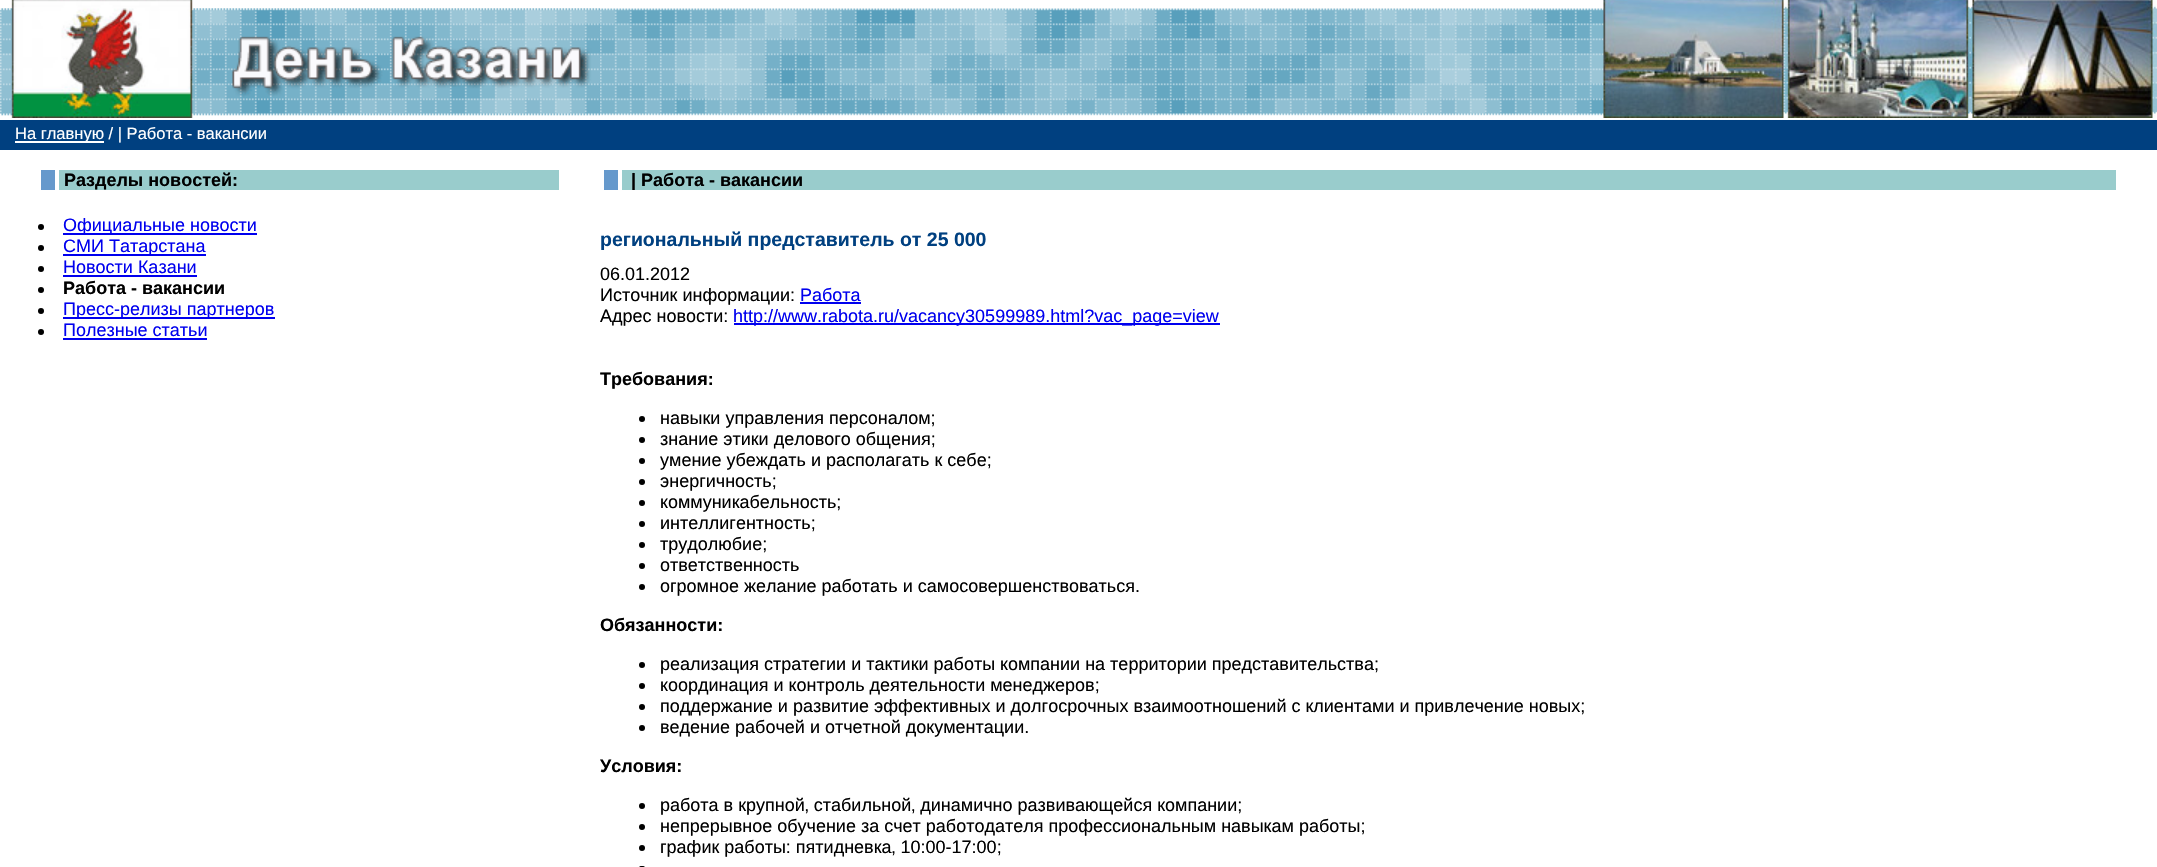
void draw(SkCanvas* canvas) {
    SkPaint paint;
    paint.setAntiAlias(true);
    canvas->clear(0xFFFFFFFF);
    canvas->drawImageRect(SkImages::DeferredFromEncodedData(SkData::MakeFromFileName("img1.png")), SkRect::MakeXYWH(0, 8, 1604, 108), SkSamplingOptions());
    canvas->drawImageRect(SkImages::DeferredFromEncodedData(SkData::MakeFromFileName("img2.png")), SkRect::MakeXYWH(0, 0, 600, 118), SkSamplingOptions());
    canvas->drawImageRect(SkImages::DeferredFromEncodedData(SkData::MakeFromFileName("img3.png")), SkRect::MakeXYWH(1603, 0, 554, 118), SkSamplingOptions());
    paint.setColor(0xFF004080);
    canvas->drawRect(SkRect::MakeXYWH(0, 120, 2157, 30), paint);
    paint.setColor(0xFFFFFFFF);
    canvas->drawRect(SkRect::MakeXYWH(15, 141, 89, 2), paint);
    SkFont font1(fontMgr->matchFamilyStyle("Liberation Sans", SkFontStyle::Normal()), 16.5f);
    font1.setSubpixel(true);
    canvas->drawString("На главную / | Работа - вакансии", 15, 139, font1, paint);
    paint.setColor(0xFF6699CC);
    canvas->drawRect(SkRect::MakeXYWH(41, 170, 14, 20), paint);
    paint.setColor(0xFF99CCCC);
    canvas->drawRect(SkRect::MakeXYWH(59, 170, 500, 20), paint);
    SkFont font2(fontMgr->matchFamilyStyle("Liberation Sans", SkFontStyle::Bold()), 18);
    font2.setSubpixel(true);
    paint.setColor(0xFF000000);
    canvas->drawString("Разделы новостей:", 64, 186, font2, paint);
    canvas->drawCircle(41, 227, 3, paint);
    paint.setColor(0xFF0000EE);
    canvas->drawRect(SkRect::MakeXYWH(63, 233, 194, 2), paint);
    SkFont font3(fontMgr->matchFamilyStyle("Liberation Sans", SkFontStyle::Normal()), 18);
    font3.setSubpixel(true);
    canvas->drawString("Официальные новости", 63, 231, font3, paint);
    paint.setColor(0xFF000000);
    canvas->drawCircle(41, 248, 3, paint);
    paint.setColor(0xFF0000EE);
    canvas->drawRect(SkRect::MakeXYWH(63, 254, 143, 2), paint);
    canvas->drawString("СМИ Татарстана", 63, 252, font3, paint);
    paint.setColor(0xFF000000);
    canvas->drawCircle(41, 269, 3, paint);
    paint.setColor(0xFF0000EE);
    canvas->drawString("Новости Казани", 63, 273, font3, paint);
    canvas->drawRect(SkRect::MakeXYWH(63, 275, 134, 2), paint);
    paint.setColor(0xFF000000);
    canvas->drawCircle(41, 290, 3, paint);
    canvas->drawString("Работа - вакансии", 63, 294, font2, paint);
    canvas->drawCircle(41, 311, 3, paint);
    paint.setColor(0xFF0000EE);
    canvas->drawRect(SkRect::MakeXYWH(63, 317, 212, 2), paint);
    canvas->drawString("Пресс-релизы партнеров", 63, 315, font3, paint);
    paint.setColor(0xFF000000);
    canvas->drawCircle(41, 332, 3, paint);
    paint.setColor(0xFF0000EE);
    canvas->drawString("Полезные статьи", 63, 336, font3, paint);
    canvas->drawRect(SkRect::MakeXYWH(63, 338, 144, 2), paint);
    paint.setColor(0xFF6699CC);
    canvas->drawRect(SkRect::MakeXYWH(604, 170, 14, 20), paint);
    paint.setColor(0xFF99CCCC);
    canvas->drawRect(SkRect::MakeXYWH(622, 170, 1494, 20), paint);
    paint.setColor(0xFF000000);
    canvas->drawString("| Работа - вакансии", 631, 186, font2, paint);
    SkFont font4(fontMgr->matchFamilyStyle("Liberation Sans", SkFontStyle::Bold()), 19.5f);
    font4.setSubpixel(true);
    paint.setColor(0xFF004080);
    canvas->drawString("региональный представитель от 25 000", 600, 246, font4, paint);
    paint.setColor(0xFF000000);
    canvas->drawString("06.01.2012", 600, 280, font3, paint);
    canvas->drawString("Источник информации:", 600, 301, font3, paint);
    paint.setColor(0xFF0000EE);
    canvas->drawString("Работа", 800, 301, font3, paint);
    canvas->drawRect(SkRect::MakeXYWH(800, 302, 61, 2), paint);
    paint.setColor(0xFF000000);
    canvas->drawString("Адрес новости:", 600, 322, font3, paint);
    paint.setColor(0xFF0000EE);
    canvas->drawRect(SkRect::MakeXYWH(734, 323, 486, 2), paint);
    canvas->drawString("http://www.rabota.ru/vacancy30599989.html?vac_page=view", 733, 322, font3, paint);
    paint.setColor(0xFF000000);
    canvas->drawString("Требования:", 600, 385, font2, paint);
    canvas->drawCircle(642, 419, 3, paint);
    canvas->drawString("навыки управления персоналом;", 660, 424, font3, paint);
    canvas->drawCircle(642, 440, 3, paint);
    canvas->drawString("знание этики делового общения;", 660, 445, font3, paint);
    canvas->drawCircle(642, 461, 3, paint);
    canvas->drawString("умение убеждать и располагать к себе;", 660, 466, font3, paint);
    canvas->drawCircle(642, 482, 3, paint);
    canvas->drawString("энергичность;", 660, 487, font3, paint);
    canvas->drawCircle(642, 503, 3, paint);
    canvas->drawString("коммуникабельность;", 660, 508, font3, paint);
    canvas->drawCircle(642, 524, 3, paint);
    canvas->drawString("интеллигентность;", 660, 529, font3, paint);
    canvas->drawCircle(642, 545, 3, paint);
    canvas->drawString("трудолюбие;", 660, 550, font3, paint);
    canvas->drawCircle(642, 566, 3, paint);
    canvas->drawString("ответственность", 660, 571, font3, paint);
    canvas->drawCircle(642, 587, 3, paint);
    canvas->drawString("огромное желание работать и самосовершенствоваться.", 660, 592, font3, paint);
    canvas->drawString("Обязанности:", 600, 631, font2, paint);
    canvas->drawCircle(642, 665, 3, paint);
    canvas->drawString("реализация стратегии и тактики работы компании на территории представительства;", 660, 670, font3, paint);
    canvas->drawCircle(642, 686, 3, paint);
    canvas->drawString("координация и контроль деятельности менеджеров;", 660, 691, font3, paint);
    canvas->drawCircle(642, 707, 3, paint);
    canvas->drawString("поддержание и развитие эффективных и долгосрочных взаимоотношений с клиентами и привлечение новых;", 660, 712, font3, paint);
    canvas->drawCircle(642, 728, 3, paint);
    canvas->drawString("ведение рабочей и отчетной документации.", 660, 733, font3, paint);
    canvas->drawString("Условия:", 600, 772, font2, paint);
    canvas->drawCircle(642, 806, 3, paint);
    canvas->drawString("работа в крупной‚ стабильной‚ динамично развивающейся компании;", 660, 811, font3, paint);
    canvas->drawCircle(642, 827, 3, paint);
    canvas->drawString("непрерывное обучение за счет работодателя профессиональным навыкам работы;", 660, 832, font3, paint);
    canvas->drawCircle(642, 848, 3, paint);
    canvas->drawString("график работы: пятидневка‚ 10:00-17:00;", 660, 853, font3, paint);
    canvas->drawRoundRect(SkRect::MakeXYWH(639, 866, 6, 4), 3, 3, paint);
}
